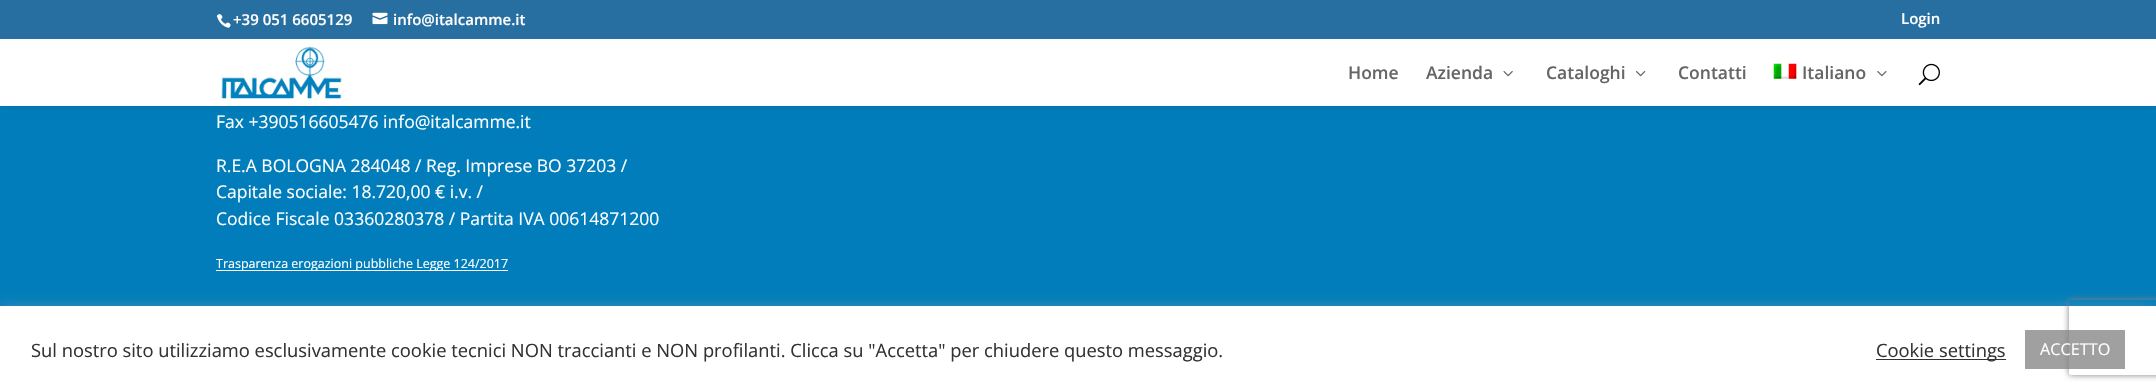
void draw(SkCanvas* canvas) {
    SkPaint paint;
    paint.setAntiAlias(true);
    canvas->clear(0xFF007DBA);
    paint.setColor(0x1A000000);
    paint.setMaskFilter(SkMaskFilter::MakeBlur(kNormal_SkBlurStyle, 4.5f));
    canvas->drawRect(SkRect::MakeXYWH(0, 39, 2156, 67), paint);
    paint.setMaskFilter(nullptr);
    paint.setColor(0xFF276EA1);
    canvas->drawRect(SkRect::MakeXYWH(0, 0, 2156, 39), paint);
    canvas->drawImageRect(SkImages::DeferredFromEncodedData(SkData::MakeFromFileName("img1.png")), SkRect::MakeXYWH(216, 14, 15, 14), SkSamplingOptions());
    SkFont font1(fontMgr->matchFamilyStyle("Open Sans", SkFontStyle(600, SkFontStyle::kNormal_Width, SkFontStyle::kUpright_Slant)), 15);
    font1.setSubpixel(true);
    paint.setColor(0xFFFFFFFF);
    canvas->drawString("+39 051 6605129", 233, 25, font1, paint);
    canvas->drawImageRect(SkImages::DeferredFromEncodedData(SkData::MakeFromFileName("img2.png")), SkRect::MakeXYWH(372, 12, 16, 13), SkSamplingOptions());
    canvas->drawString("info@italcamme.it", 393, 25, font1, paint);
    canvas->drawString("Login", 1901, 24, font1, paint);
    canvas->drawRect(SkRect::MakeXYWH(0, 39, 2156, 67), paint);
    canvas->drawImageRect(SkImages::DeferredFromEncodedData(SkData::MakeFromFileName("img3.png")), SkRect::MakeXYWH(221, 46, 121, 53), SkSamplingOptions());
    SkFont font2(fontMgr->matchFamilyStyle("Open Sans", SkFontStyle(600, SkFontStyle::kNormal_Width, SkFontStyle::kUpright_Slant)), 17.5f);
    font2.setSubpixel(true);
    paint.setColor(0xFF666666);
    canvas->drawString("Home", 1348, 79, font2, paint);
    canvas->drawString("Azienda", 1426, 79, font2, paint);
    canvas->drawImageRect(SkImages::DeferredFromEncodedData(SkData::MakeFromFileName("img4.png")), SkRect::MakeXYWH(1503, 71, 10, 6), SkSamplingOptions());
    canvas->drawString("Cataloghi", 1546, 79, font2, paint);
    canvas->drawImageRect(SkImages::DeferredFromEncodedData(SkData::MakeFromFileName("img5.png")), SkRect::MakeXYWH(1636, 71, 10, 6), SkSamplingOptions());
    canvas->drawString("Contatti", 1678, 79, font2, paint);
    canvas->drawImageRect(SkImages::DeferredFromEncodedData(SkData::MakeFromFileName("img6.png")), SkRect::MakeXYWH(1773, 63, 24, 16), SkSamplingOptions());
    canvas->drawString("Italiano", 1802, 79, font2, paint);
    canvas->drawImageRect(SkImages::DeferredFromEncodedData(SkData::MakeFromFileName("img7.png")), SkRect::MakeXYWH(1877, 71, 10, 6), SkSamplingOptions());
    canvas->drawImageRect(SkImages::DeferredFromEncodedData(SkData::MakeFromFileName("img8.png")), SkRect::MakeXYWH(1918, 63, 22, 23), SkSamplingOptions());
    SkFont font3(fontMgr->matchFamilyStyle("Open Sans", SkFontStyle::Normal()), 17.5f);
    font3.setSubpixel(true);
    paint.setColor(0xFFFFFFFF);
    canvas->drawString("Fax +390516605476 info@italcamme.it", 216, 128, font3, paint);
    canvas->drawString("R.E.A BOLOGNA 284048 / Reg. Imprese BO 37203 /", 216, 172, font3, paint);
    canvas->drawString("Capitale sociale: 18.720,00 € i.v. /", 216, 198, font3, paint);
    canvas->drawString("Codice Fiscale 03360280378 / Partita IVA 00614871200", 216, 225, font3, paint);
    canvas->drawRect(SkRect::MakeXYWH(216, 270, 292, 1), paint);
    SkFont font4(fontMgr->matchFamilyStyle("Open Sans", SkFontStyle::Normal()), 12.5f);
    font4.setSubpixel(true);
    canvas->drawString("Trasparenza erogazioni pubbliche Legge 124/2017", 216, 268, font4, paint);
    paint.setColor(0x4DACABAB);
    paint.setMaskFilter(SkMaskFilter::MakeBlur(kNormal_SkBlurStyle, 6));
    canvas->drawRect(SkRect::MakeXYWH(0, 305, 2156, 86), paint);
    paint.setMaskFilter(nullptr);
    paint.setColor(0xFFFFFFFF);
    canvas->drawRect(SkRect::MakeXYWH(0, 306, 2156, 86), paint);
    paint.setColor(0xFFA0A0A0);
    canvas->drawRect(SkRect::MakeXYWH(2025, 330, 100, 39), paint);
    canvas->save();
    canvas->clipPath(SkPathBuilder(SkPathFillType::kEvenOdd).moveTo(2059, 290).lineTo(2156, 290).lineTo(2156, 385).lineTo(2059, 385).close().moveTo(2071.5f, 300).lineTo(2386.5f, 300).cubicTo(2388, 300, 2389, 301, 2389, 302.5f).lineTo(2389, 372.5f).cubicTo(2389, 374, 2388, 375, 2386.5f, 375).lineTo(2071.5f, 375).cubicTo(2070, 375, 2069, 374, 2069, 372.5f).lineTo(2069, 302.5f).cubicTo(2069, 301, 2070, 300, 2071.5f, 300).close().detach(), true);
    paint.setColor(0xFF808080);
    paint.setMaskFilter(SkMaskFilter::MakeBlur(kNormal_SkBlurStyle, 3));
    canvas->drawRoundRect(SkRect::MakeXYWH(2069, 300, 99, 75), 2.5f, 2.5f, paint);
    paint.setMaskFilter(nullptr);
    canvas->restore();
    SkFont font5(fontMgr->matchFamilyStyle("Open Sans", SkFontStyle::Normal()), 18.33f);
    font5.setSubpixel(true);
    paint.setColor(0xFF333333);
    canvas->drawString("Sul nostro sito utilizziamo esclusivamente cookie tecnici NON traccianti e NON profilanti. Clicca su \"Accetta\" per chiudere questo messaggio.", 31, 357, font5, paint);
    canvas->drawRect(SkRect::MakeXYWH(1876, 359, 130, 1), paint);
    canvas->drawString("Cookie settings", 1876, 357, font5, paint);
    SkFont font6(fontMgr->matchFamilyStyle("Open Sans", SkFontStyle::Normal()), 16.25f);
    font6.setSubpixel(true);
    paint.setColor(0xFFFFFFFF);
    canvas->drawString("ACCETTO", 2040, 355, font6, paint);
}
